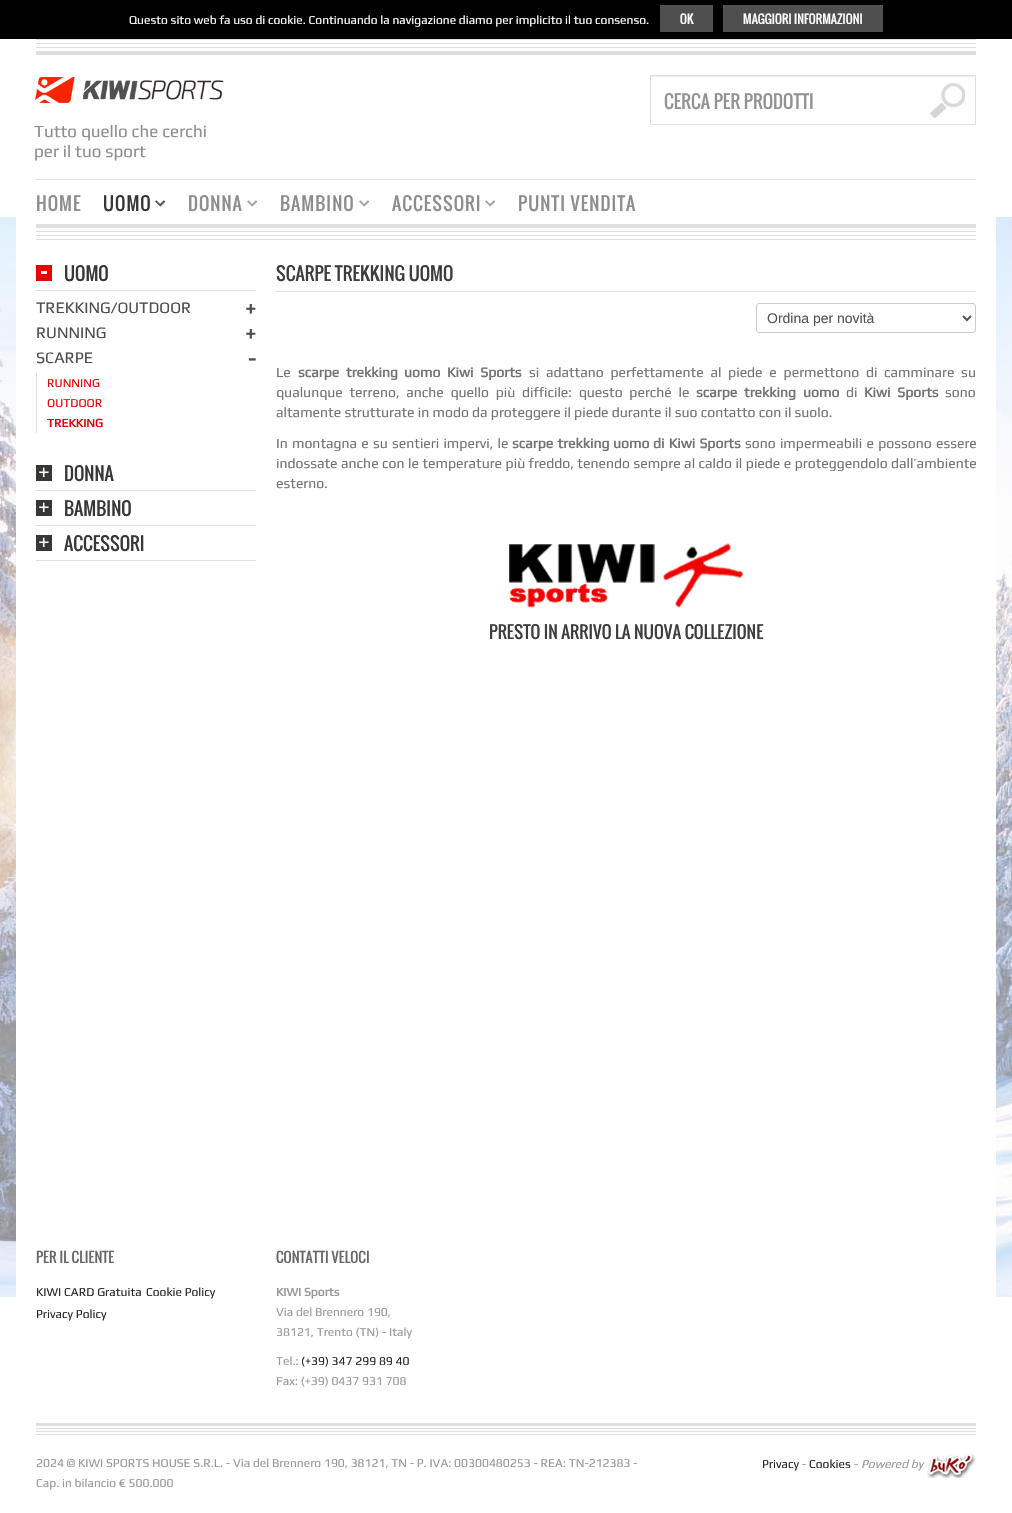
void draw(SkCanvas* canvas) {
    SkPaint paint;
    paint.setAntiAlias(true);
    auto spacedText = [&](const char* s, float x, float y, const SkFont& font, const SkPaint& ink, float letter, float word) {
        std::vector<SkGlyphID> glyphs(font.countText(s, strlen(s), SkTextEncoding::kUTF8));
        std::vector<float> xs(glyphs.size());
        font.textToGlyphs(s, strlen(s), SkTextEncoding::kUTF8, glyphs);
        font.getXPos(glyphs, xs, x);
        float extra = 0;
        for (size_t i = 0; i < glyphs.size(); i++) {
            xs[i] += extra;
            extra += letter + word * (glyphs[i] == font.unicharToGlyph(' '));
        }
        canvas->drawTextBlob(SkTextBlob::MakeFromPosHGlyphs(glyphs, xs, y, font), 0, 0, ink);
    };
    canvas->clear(0xFFFFFFFF);
    canvas->drawImageRect(SkImages::DeferredFromEncodedData(SkData::MakeFromFileName("img1.png")), SkRect::MakeXYWH(0, 217, 1012, 1080), SkSamplingOptions());
    paint.setColor(0xFF000000);
    canvas->drawRect(SkRect::MakeXYWH(0, 0, 1012, 39), paint);
    SkFont font1(fontMgr->matchFamilyStyle("Play", SkFontStyle::Normal()), 12);
    font1.setSubpixel(true);
    paint.setColor(0xFFFFFFFF);
    canvas->drawString("Questo sito web fa uso di cookie. Continuando la navigazione diamo per implicito il tuo consenso.", 129, 24, font1, paint);
    paint.setColor(0xFF4F4F4F);
    canvas->drawRect(SkRect::MakeXYWH(660, 5, 53, 27), paint);
    SkFont font2(fontMgr->matchFamilyStyle("Oswald", SkFontStyle::Normal()), 12);
    font2.setSubpixel(true);
    paint.setColor(0xFFFFFFFF);
    canvas->drawString("OK", 680, 24, font2, paint);
    paint.setColor(0xFF4F4F4F);
    canvas->drawRect(SkRect::MakeXYWH(723, 5, 160, 27), paint);
    paint.setColor(0xFFFFFFFF);
    canvas->drawString("MAGGIORI INFORMAZIONI", 743, 24, font2, paint);
    canvas->drawRect(SkRect::MakeXYWH(16, 217, 980, 1080), paint);
    paint.setColor(0xFFE0DFDF);
    canvas->drawRect(SkRect::MakeXYWH(36, 39, 940, 1), paint);
    canvas->drawRect(SkRect::MakeXYWH(36, 43, 940, 1), paint);
    canvas->drawRect(SkRect::MakeXYWH(36, 47, 940, 1), paint);
    canvas->drawRect(SkRect::MakeXYWH(36, 51, 940, 4), paint);
    canvas->drawImageRect(SkImages::DeferredFromEncodedData(SkData::MakeFromFileName("img2.png")), SkRect::MakeXYWH(930, 83, 35, 35), SkSamplingOptions());
    paint.setColor(0xFFECECEC);
    canvas->drawRect(SkRect::MakeXYWH(651, 76, 324, 1), paint);
    paint.setStyle(SkPaint::kStroke_Style);
    paint.setStrokeWidth(1);
    paint.setColor(0xFFE0DFDF);
    canvas->drawRect(SkRect::MakeXYWH(650.5f, 75.5f, 325, 49), paint);
    SkFont font3(fontMgr->matchFamilyStyle("Oswald", SkFontStyle::Normal()), 18);
    font3.setSubpixel(true);
    paint.setStyle(SkPaint::kFill_Style);
    paint.setColor(0xFF939292);
    canvas->drawString("CERCA PER PRODOTTI", 664, 109, font3, paint);
    canvas->drawImageRect(SkImages::DeferredFromEncodedData(SkData::MakeFromFileName("img3.png")), SkRect::MakeXYWH(34, 77, 190, 26), SkSamplingOptions());
    SkFont font4(fontMgr->matchFamilyStyle("Play", SkFontStyle::Normal()), 17);
    font4.setSubpixel(true);
    paint.setColor(0xFF8D8D8D);
    canvas->drawString("Tutto quello che cerchi", 34, 137, font4, paint);
    canvas->drawString("per il tuo sport", 34, 157, font4, paint);
    paint.setColor(0xFFE0DFDF);
    canvas->drawRect(SkRect::MakeXYWH(36, 179, 940, 1), paint);
    paint.setColor(0xFF8D8D8D);
    spacedText("HOME", 36, 211, font3, paint, 1, 0);
    paint.setColor(0xFF373736);
    spacedText("UOMO", 103, 211, font3, paint, 1, 0);
    canvas->drawImageRect(SkImages::DeferredFromEncodedData(SkData::MakeFromFileName("img4.png")), SkRect::MakeXYWH(155, 200, 11, 7), SkSamplingOptions());
    paint.setColor(0xFF8D8D8D);
    spacedText("DONNA", 188, 211, font3, paint, 1, 0);
    canvas->drawImageRect(SkImages::DeferredFromEncodedData(SkData::MakeFromFileName("img5.png")), SkRect::MakeXYWH(247, 200, 11, 7), SkSamplingOptions());
    spacedText("BAMBINO", 280, 211, font3, paint, 1, 0);
    canvas->drawImageRect(SkImages::DeferredFromEncodedData(SkData::MakeFromFileName("img5.png")), SkRect::MakeXYWH(359, 200, 11, 7), SkSamplingOptions());
    spacedText("ACCESSORI", 392, 211, font3, paint, 1, 0);
    canvas->drawImageRect(SkImages::DeferredFromEncodedData(SkData::MakeFromFileName("img5.png")), SkRect::MakeXYWH(485, 200, 11, 7), SkSamplingOptions());
    spacedText("PUNTI VENDITA", 518, 211, font3, paint, 1, 0);
    paint.setColor(0xFFE0DFDF);
    canvas->drawRect(SkRect::MakeXYWH(36, 224, 940, 4), paint);
    canvas->drawRect(SkRect::MakeXYWH(36, 231, 940, 1), paint);
    canvas->drawRect(SkRect::MakeXYWH(36, 235, 940, 1), paint);
    canvas->drawRect(SkRect::MakeXYWH(36, 239, 940, 1), paint);
    canvas->drawImageRect(SkImages::DeferredFromEncodedData(SkData::MakeFromFileName("img6.png")), SkRect::MakeXYWH(36, 265, 16, 16), SkSamplingOptions());
    canvas->drawRect(SkRect::MakeXYWH(36, 290, 220, 1), paint);
    paint.setColor(0xFF373736);
    canvas->drawString("UOMO", 64, 281, font3, paint);
    SkFont font5(fontMgr->matchFamilyStyle("Play", SkFontStyle::Normal()), 16);
    font5.setSubpixel(true);
    paint.setColor(0xFF4F4D4D);
    canvas->drawString("TREKKING/OUTDOOR", 36, 313, font5, paint);
    SkFont font6(fontMgr->matchFamilyStyle("Play", SkFontStyle::Bold()), 22);
    font6.setSubpixel(true);
    canvas->drawString("+", 245, 316, font6, paint);
    canvas->drawString("RUNNING", 36, 338, font5, paint);
    canvas->drawString("+", 245, 341, font6, paint);
    canvas->drawString("SCARPE", 36, 363, font5, paint);
    canvas->drawString("-", 248, 366, font6, paint);
    paint.setColor(0xFFE0DFDF);
    canvas->drawRect(SkRect::MakeXYWH(36, 373, 1, 60), paint);
    paint.setColor(0xFFE70303);
    canvas->drawString("RUNNING", 47, 387, font1, paint);
    canvas->drawString("OUTDOOR", 47, 407, font1, paint);
    SkFont font7(fontMgr->matchFamilyStyle("Play", SkFontStyle::Bold()), 12);
    font7.setSubpixel(true);
    canvas->drawString("TREKKING", 47, 427, font7, paint);
    canvas->drawImageRect(SkImages::DeferredFromEncodedData(SkData::MakeFromFileName("img7.png")), SkRect::MakeXYWH(36, 465, 16, 16), SkSamplingOptions());
    paint.setColor(0xFFE0DFDF);
    canvas->drawRect(SkRect::MakeXYWH(36, 490, 220, 1), paint);
    paint.setColor(0xFF373736);
    canvas->drawString("DONNA", 64, 481, font3, paint);
    canvas->drawImageRect(SkImages::DeferredFromEncodedData(SkData::MakeFromFileName("img7.png")), SkRect::MakeXYWH(36, 500, 16, 16), SkSamplingOptions());
    paint.setColor(0xFFE0DFDF);
    canvas->drawRect(SkRect::MakeXYWH(36, 525, 220, 1), paint);
    paint.setColor(0xFF373736);
    canvas->drawString("BAMBINO", 64, 516, font3, paint);
    canvas->drawImageRect(SkImages::DeferredFromEncodedData(SkData::MakeFromFileName("img7.png")), SkRect::MakeXYWH(36, 535, 16, 16), SkSamplingOptions());
    paint.setColor(0xFFE0DFDF);
    canvas->drawRect(SkRect::MakeXYWH(36, 560, 220, 1), paint);
    paint.setColor(0xFF373736);
    canvas->drawString("ACCESSORI", 64, 551, font3, paint);
    paint.setColor(0xFF3E3D3D);
    canvas->drawString("SCARPE TREKKING UOMO", 276, 281, font3, paint);
    paint.setColor(0xFFE0DFDF);
    canvas->drawRect(SkRect::MakeXYWH(276, 291, 700, 1), paint);
    paint.setStyle(SkPaint::kStroke_Style);
    paint.setColor(0xFFCCCCCC);
    canvas->drawRoundRect(SkRect::MakeXYWH(756.5f, 303.5f, 219, 29), 2.5f, 2.5f, paint);
    paint.setStrokeWidth(2);
    paint.setColor(0xFF555555);
    canvas->drawPath(SkPathBuilder().moveTo(963, 316).lineTo(967, 320).lineTo(971, 316).detach(), paint);
    SkFont font8(fontMgr->matchFamilyStyle("Liberation Sans", SkFontStyle::Normal()), 14);
    font8.setSubpixel(true);
    paint.setStyle(SkPaint::kFill_Style);
    canvas->drawString("Ordina per novità", 767, 323, font8, paint);
    SkFont font9(fontMgr->matchFamilyStyle("Play", SkFontStyle::Normal()), 14);
    font9.setSubpixel(true);
    paint.setColor(0xFF747373);
    canvas->drawString("Le", 276, 377, font9, paint);
    SkFont font10(fontMgr->matchFamilyStyle("Play", SkFontStyle::Bold()), 14);
    font10.setSubpixel(true);
    spacedText("scarpe trekking", 298, 377, font10, paint, 0, 3.5f);
    canvas->drawString("uomo", 404, 377, font10, paint);
    spacedText("Kiwi Sports", 447, 377, font10, paint, 0, 3.5f);
    spacedText("si adattano perfettamente al piede e permettono di camminare su", 529, 377, font9, paint, 0, 3.5f);
    spacedText("qualunque terreno, anche quello più difficile: questo perché le", 276, 397, font9, paint, 0, 3.5f);
    spacedText("scarpe trekking", 696, 397, font10, paint, 0, 3.5f);
    canvas->drawString("uomo", 803, 397, font10, paint);
    canvas->drawString("di", 846, 397, font9, paint);
    spacedText("Kiwi Sports", 864, 397, font10, paint, 0, 3.5f);
    canvas->drawString("sono", 945, 397, font9, paint);
    canvas->drawString("altamente strutturate in modo da proteggere il piede durante il suo contatto con il suolo.", 276, 417, font9, paint);
    spacedText("In montagna e su sentieri impervi, le", 276, 448, font9, paint, 0, 1);
    spacedText("scarpe trekking", 512, 448, font10, paint, 0, 1);
    canvas->drawString("uomo", 613, 448, font10, paint);
    spacedText("di Kiwi Sports", 653, 448, font10, paint, 0, 1);
    spacedText("sono impermeabili e possono essere", 745, 448, font9, paint, 0, 1);
    spacedText("indossate anche con le temperature più freddo, tenendo sempre al caldo il piede e proteggendolo dall’ambiente", 276, 468, font9, paint, 0, 0.25f);
    canvas->drawString("esterno.", 276, 488, font9, paint);
    canvas->drawImageRect(SkImages::DeferredFromEncodedData(SkData::MakeFromFileName("img8.png")), SkRect::MakeXYWH(509, 543, 235, 65), SkSamplingOptions());
    SkFont font11(fontMgr->matchFamilyStyle("Oswald", SkFontStyle::Normal()), 17);
    font11.setSubpixel(true);
    paint.setColor(0xFF3E3D3D);
    canvas->drawString("PRESTO IN ARRIVO LA NUOVA COLLEZIONE", 489, 639, font11, paint);
    SkFont font12(fontMgr->matchFamilyStyle("Oswald", SkFontStyle::Normal()), 14);
    font12.setSubpixel(true);
    paint.setColor(0xFF676768);
    canvas->drawString("PER IL CLIENTE", 36, 1263, font12, paint);
    paint.setColor(0xFF282828);
    canvas->drawString("KIWI CARD Gratuita", 36, 1296, font1, paint);
    canvas->drawString("Cookie Policy", 146, 1296, font1, paint);
    canvas->drawString("Privacy Policy", 36, 1318, font1, paint);
    paint.setColor(0xFF676768);
    canvas->drawString("CONTATTI VELOCI", 276, 1263, font12, paint);
    paint.setColor(0xFF999898);
    canvas->drawString("KIWI Sports", 276, 1296, font7, paint);
    canvas->drawString("Via del Brennero 190,", 276, 1316, font1, paint);
    canvas->drawString("38121, Trento (TN) - Italy", 276, 1336, font1, paint);
    canvas->drawString("Tel.:", 276, 1365, font1, paint);
    paint.setColor(0xFF282828);
    canvas->drawString("(+39) 347 299 89 40", 301, 1365, font1, paint);
    paint.setColor(0xFF999898);
    canvas->drawString("Fax: (+39) 0437 931 708", 276, 1385, font1, paint);
    paint.setColor(0xFFE0DFDF);
    canvas->drawRect(SkRect::MakeXYWH(36, 1423, 940, 3), paint);
    canvas->drawRect(SkRect::MakeXYWH(36, 1428, 940, 1), paint);
    canvas->drawRect(SkRect::MakeXYWH(36, 1431, 940, 1), paint);
    canvas->drawRect(SkRect::MakeXYWH(36, 1434, 940, 1), paint);
    paint.setColor(0xFF999898);
    canvas->drawString("2024 © KIWI SPORTS HOUSE S.R.L. - Via del Brennero 190, 38121, TN - P. IVA: 00300480253 - REA: TN-212383 -", 36, 1467, font1, paint);
    canvas->drawString("Cap. in bilancio € 500.000", 36, 1487, font1, paint);
    paint.setColor(0xFF282828);
    canvas->drawString("Privacy", 762, 1468, font1, paint);
    paint.setColor(0xFF999898);
    canvas->drawString("-", 802, 1468, font1, paint);
    paint.setColor(0xFF282828);
    canvas->drawString("Cookies", 809, 1468, font1, paint);
    paint.setColor(0xFF999898);
    canvas->drawString("-", 854, 1468, font1, paint);
    SkFont font13(fontMgr->matchFamilyStyle("Play", SkFontStyle::Italic()), 12);
    font13.setSubpixel(true);
    canvas->drawString("Powered by", 861, 1468, font13, paint);
    canvas->drawImageRect(SkImages::DeferredFromEncodedData(SkData::MakeFromFileName("img9.png")), SkRect::MakeXYWH(927, 1453, 49, 25), SkSamplingOptions());
}
